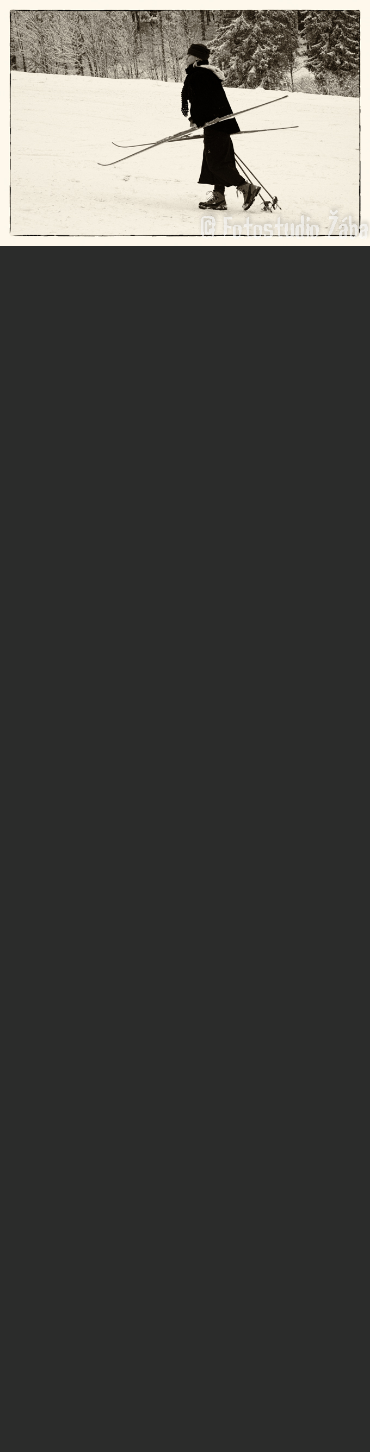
void draw(SkCanvas* canvas) {
    SkPaint paint;
    paint.setAntiAlias(true);
    canvas->clear(0xFF2B2C2B);
    canvas->drawImageRect(SkImages::DeferredFromEncodedData(SkData::MakeFromFileName("img1.png")), SkRect::MakeXYWH(0, 0, 370, 246), SkSamplingOptions());
}
